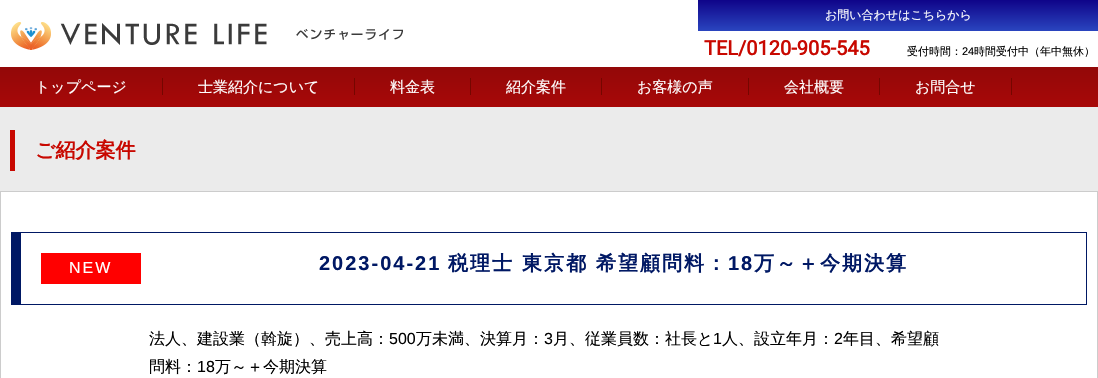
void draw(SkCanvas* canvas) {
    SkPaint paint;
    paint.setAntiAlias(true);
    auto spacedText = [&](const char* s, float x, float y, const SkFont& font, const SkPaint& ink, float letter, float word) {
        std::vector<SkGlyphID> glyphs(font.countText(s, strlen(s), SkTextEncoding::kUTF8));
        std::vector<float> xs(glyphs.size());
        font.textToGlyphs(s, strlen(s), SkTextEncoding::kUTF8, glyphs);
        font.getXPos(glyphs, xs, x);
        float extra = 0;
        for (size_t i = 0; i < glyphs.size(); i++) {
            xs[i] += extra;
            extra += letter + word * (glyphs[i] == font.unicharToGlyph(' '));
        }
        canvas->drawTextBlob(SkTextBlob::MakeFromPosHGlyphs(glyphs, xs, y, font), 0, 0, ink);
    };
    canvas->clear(0xFFEBEBEB);
    paint.setColor(0xFFFFFFFF);
    canvas->drawRect(SkRect::MakeXYWH(0, 0, 1098, 67), paint);
    canvas->drawImageRect(SkImages::DeferredFromEncodedData(SkData::MakeFromFileName("img1.png")), SkRect::MakeXYWH(11, 22, 392, 28), SkSamplingOptions());
    {
        const SkColor colors[] = {0xFF0F0489, 0xFF2A45BF};
        const float stops[] = {0, 1};
        const SkPoint ends[] = {{898, 0}, {898, 31}};
        paint.setShader(SkGradientShader::MakeLinear(ends, colors, stops, 2, SkTileMode::kClamp));
        paint.setAlpha(255);
    }
    canvas->drawRect(SkRect::MakeXYWH(698, 0, 400, 31), paint);
    SkFont font1(fontMgr->matchFamilyStyle("WenQuanYi Zen Hei", SkFontStyle(500, SkFontStyle::kNormal_Width, SkFontStyle::kUpright_Slant)), 12);
    font1.setSubpixel(true);
    paint.setShader(nullptr);
    paint.setColor(0xFFFFFFFF);
    canvas->drawString("お問い合わせはこちらから", 825, 19, font1, paint);
    SkFont font2(fontMgr->matchFamilyStyle("Roboto", SkFontStyle::Bold()), 20);
    font2.setSubpixel(true);
    paint.setColor(0xFFC80800);
    canvas->drawString("TEL/0120-905-545", 704, 55, font2, paint);
    SkFont font3(fontMgr->matchFamilyStyle("WenQuanYi Zen Hei", SkFontStyle(500, SkFontStyle::kNormal_Width, SkFontStyle::kUpright_Slant)), 11);
    font3.setSubpixel(true);
    paint.setColor(0xFF000000);
    canvas->drawString("受付時間：", 907, 55, font3, paint);
    SkFont font4(fontMgr->matchFamilyStyle("Liberation Sans", SkFontStyle::Normal()), 11);
    font4.setSubpixel(true);
    canvas->drawString("24", 962, 55, font4, paint);
    canvas->drawString("時間受付中（年中無休）", 974, 55, font3, paint);
    {
        const SkColor colors[] = {0xFF930808, 0xFFA80808};
        const float stops[] = {0.01f, 1};
        const SkPoint ends[] = {{549, 67}, {549, 107}};
        paint.setShader(SkGradientShader::MakeLinear(ends, colors, stops, 2, SkTileMode::kClamp));
        paint.setAlpha(255);
    }
    canvas->drawRect(SkRect::MakeXYWH(0, 67, 1098, 40), paint);
    SkFont font5(fontMgr->matchFamilyStyle("WenQuanYi Zen Hei", SkFontStyle(500, SkFontStyle::kNormal_Width, SkFontStyle::kUpright_Slant)), 15);
    font5.setSubpixel(true);
    paint.setShader(nullptr);
    paint.setColor(0xFFFFFFFF);
    canvas->drawString("トップページ", 35, 92, font5, paint);
    paint.setColor(0xFF750600);
    canvas->drawRect(SkRect::MakeXYWH(162, 78, 1, 17), paint);
    paint.setColor(0xFFFFFFFF);
    canvas->drawString("士業紹介について", 198, 92, font5, paint);
    paint.setColor(0xFF750600);
    canvas->drawRect(SkRect::MakeXYWH(354, 78, 1, 17), paint);
    paint.setColor(0xFFFFFFFF);
    canvas->drawString("料金表", 390, 92, font5, paint);
    paint.setColor(0xFF750600);
    canvas->drawRect(SkRect::MakeXYWH(470, 78, 1, 17), paint);
    paint.setColor(0xFFFFFFFF);
    canvas->drawString("紹介案件", 506, 92, font5, paint);
    paint.setColor(0xFF750600);
    canvas->drawRect(SkRect::MakeXYWH(601, 78, 1, 17), paint);
    paint.setColor(0xFFFFFFFF);
    canvas->drawString("お客様の声", 637, 92, font5, paint);
    paint.setColor(0xFF750600);
    canvas->drawRect(SkRect::MakeXYWH(748, 78, 1, 17), paint);
    paint.setColor(0xFFFFFFFF);
    canvas->drawString("会社概要", 784, 92, font5, paint);
    paint.setColor(0xFF750600);
    canvas->drawRect(SkRect::MakeXYWH(879, 78, 1, 17), paint);
    paint.setColor(0xFFFFFFFF);
    canvas->drawString("お問合せ", 915, 92, font5, paint);
    paint.setColor(0xFF750600);
    canvas->drawRect(SkRect::MakeXYWH(1011, 78, 1, 17), paint);
    paint.setColor(0xFFC80800);
    canvas->drawRect(SkRect::MakeXYWH(10, 130, 5, 41), paint);
    SkFont font6(fontMgr->matchFamilyStyle("WenQuanYi Zen Hei", SkFontStyle::Bold()), 20);
    font6.setSubpixel(true);
    canvas->drawString("ご紹介案件", 35, 157, font6, paint);
    paint.setColor(0xFFFFFFFF);
    canvas->drawRect(SkRect::MakeXYWH(0.5f, 191.5f, 1097, 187), paint);
    paint.setStyle(SkPaint::kStroke_Style);
    paint.setStrokeWidth(1);
    paint.setColor(0xFFCCCCCC);
    canvas->drawRect(SkRect::MakeXYWH(0.5f, 191.5f, 1097, 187), paint);
    paint.setStyle(SkPaint::kFill_Style);
    paint.setColor(0xFF001864);
    canvas->drawRect(SkRect::MakeXYWH(21, 232, 1066, 1), paint);
    canvas->drawRect(SkRect::MakeXYWH(1086, 232, 1, 73), paint);
    canvas->drawRect(SkRect::MakeXYWH(21, 304, 1066, 1), paint);
    canvas->drawRect(SkRect::MakeXYWH(11, 232, 10, 73), paint);
    paint.setColor(0xFFFF0000);
    canvas->drawRect(SkRect::MakeXYWH(41, 253, 100, 31), paint);
    SkFont font7(fontMgr->matchFamilyStyle("Liberation Sans", SkFontStyle::Normal()), 16);
    font7.setSubpixel(true);
    paint.setColor(0xFFFFFFFF);
    spacedText("NEW", 69, 273, font7, paint, 2, 0);
    SkFont font8(fontMgr->matchFamilyStyle("Liberation Sans", SkFontStyle::Bold()), 20);
    font8.setSubpixel(true);
    paint.setColor(0xFF001864);
    spacedText("2023-04-21", 319, 270, font8, paint, 2, 0);
    spacedText("税理士 東京都 希望顧問料：", 448, 270, font6, paint, 2, 0);
    spacedText("18", 728, 270, font8, paint, 2, 0);
    spacedText("万～＋今期決算", 754, 270, font6, paint, 2, 0);
    SkFont font9(fontMgr->matchFamilyStyle("WenQuanYi Zen Hei", SkFontStyle(500, SkFontStyle::kNormal_Width, SkFontStyle::kUpright_Slant)), 16);
    font9.setSubpixel(true);
    paint.setColor(0xFF000000);
    canvas->drawString("法人、建設業（斡旋）、売上高：", 149, 344, font9, paint);
    canvas->drawString("500", 389, 344, font7, paint);
    canvas->drawString("万未満、決算月：", 416, 344, font9, paint);
    canvas->drawString("3", 544, 344, font7, paint);
    canvas->drawString("月、従業員数：社長と", 553, 344, font9, paint);
    canvas->drawString("1", 713, 344, font7, paint);
    canvas->drawString("人、設立年月：", 722, 344, font9, paint);
    canvas->drawString("2", 834, 344, font7, paint);
    canvas->drawString("年目、希望顧", 843, 344, font9, paint);
    canvas->drawString("問料：", 149, 372, font9, paint);
    canvas->drawString("18", 197, 372, font7, paint);
    canvas->drawString("万～＋今期決算", 215, 372, font9, paint);
}
